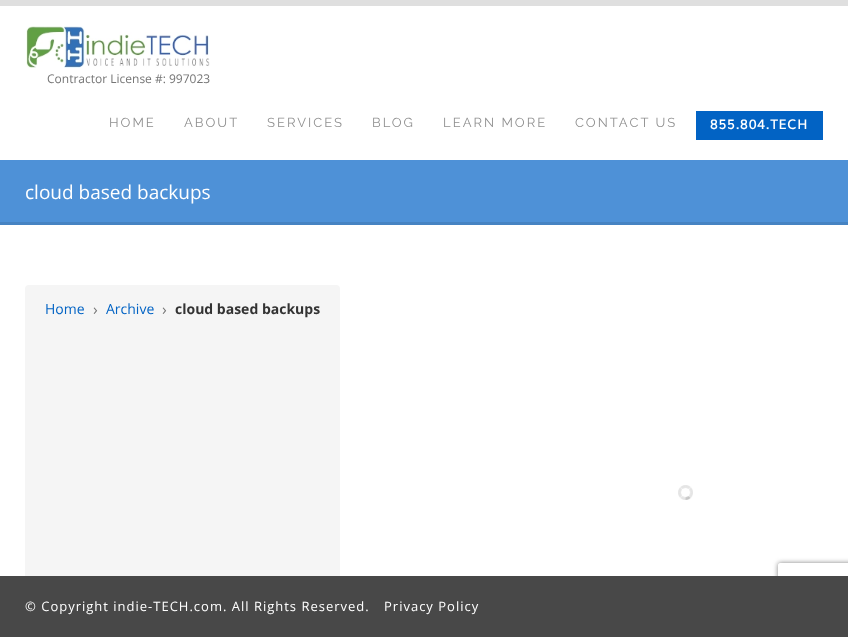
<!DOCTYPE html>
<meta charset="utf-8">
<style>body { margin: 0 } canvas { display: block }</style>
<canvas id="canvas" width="848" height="637"></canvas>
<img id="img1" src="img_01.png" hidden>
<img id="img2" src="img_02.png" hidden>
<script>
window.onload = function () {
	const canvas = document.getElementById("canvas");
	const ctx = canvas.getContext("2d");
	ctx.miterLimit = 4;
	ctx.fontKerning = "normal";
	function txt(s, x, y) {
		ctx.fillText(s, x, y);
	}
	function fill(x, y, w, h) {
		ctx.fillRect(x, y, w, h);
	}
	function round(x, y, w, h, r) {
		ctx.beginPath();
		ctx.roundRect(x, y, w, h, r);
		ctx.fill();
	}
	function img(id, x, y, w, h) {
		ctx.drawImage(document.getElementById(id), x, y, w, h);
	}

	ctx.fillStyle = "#FFFFFF";
	fill(0, 0, 848, 637);
	ctx.fillStyle = "#DFDFDF";
	fill(0, 0, 848, 6);
	img("img1", 26, 26, 184, 42);
	ctx.fillStyle = "#0263C4";
	fill(696, 111, 127, 29);
	ctx.fillStyle = "#4E91D7";
	fill(0, 160, 848, 62);
	ctx.fillStyle = "#4683C2";
	fill(0, 222, 848, 3);
	ctx.fillStyle = "#F5F5F5";
	round(25, 285, 315, 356, 4);
	img("img2", 678, 485, 15, 15);
	ctx.save();
	ctx.beginPath();
	ctx.moveTo(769, 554);
	ctx.lineTo(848, 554);
	ctx.lineTo(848, 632);
	ctx.lineTo(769, 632);
	ctx.closePath();
	ctx.moveTo(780, 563);
	ctx.lineTo(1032, 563);
	ctx.bezierCurveTo(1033, 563, 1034, 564, 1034, 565);
	ctx.lineTo(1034, 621);
	ctx.bezierCurveTo(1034, 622, 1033, 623, 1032, 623);
	ctx.lineTo(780, 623);
	ctx.bezierCurveTo(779, 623, 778, 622, 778, 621);
	ctx.lineTo(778, 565);
	ctx.bezierCurveTo(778, 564, 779, 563, 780, 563);
	ctx.closePath();
	ctx.clip("evenodd");
	ctx.fillStyle = "#808080";
	ctx.filter = "blur(2.5px)";
	ctx.beginPath();
	ctx.roundRect(778, 563, 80, 60, 2);
	ctx.fill();
	ctx.filter = "none";
	ctx.restore();
	ctx.fillStyle = "#484848";
	fill(0, 576, 848, 61);
	ctx.font = "12px Open Sans";
	ctx.fillStyle = "#757575";
	txt("Contractor License #: 997023", 47, 83);
	ctx.letterSpacing = "2px";
	ctx.font = "13px Raleway";
	ctx.fillStyle = "#8F8F8F";
	txt("HOME", 109, 127);
	txt("ABOUT", 184, 127);
	txt("SERVICES", 267, 127);
	txt("BLOG", 372, 127);
	txt("LEARN MORE", 443, 127);
	txt("CONTACT US", 575, 127);
	ctx.letterSpacing = "1px";
	ctx.font = "italic bold 13px Muli";
	ctx.fillStyle = "#FFFFFF";
	txt("855.804.TECH", 710, 129);
	ctx.letterSpacing = "0px";
	ctx.font = "19px Open Sans";
	txt("cloud based backups", 25, 199);
	ctx.font = "14px Open Sans";
	ctx.fillStyle = "#0263C4";
	txt("Home", 45, 314);
	ctx.font = "16px Open Sans";
	ctx.fillStyle = "#757575";
	txt("›", 93, 315);
	ctx.font = "14px Open Sans";
	ctx.fillStyle = "#0263C4";
	txt("Archive", 106, 314);
	ctx.font = "16px Open Sans";
	ctx.fillStyle = "#757575";
	txt("›", 162, 315);
	ctx.font = "bold 14px Open Sans";
	ctx.fillStyle = "#333333";
	txt("cloud based backups", 175, 314);
	ctx.letterSpacing = "1px";
	ctx.font = "13px Open Sans";
	ctx.fillStyle = "#FFFFFF";
	txt("© Copyright indie-TECH.com. All Rights Reserved.", 25, 611);
	txt("Privacy Policy", 384, 611);
};
</script>
